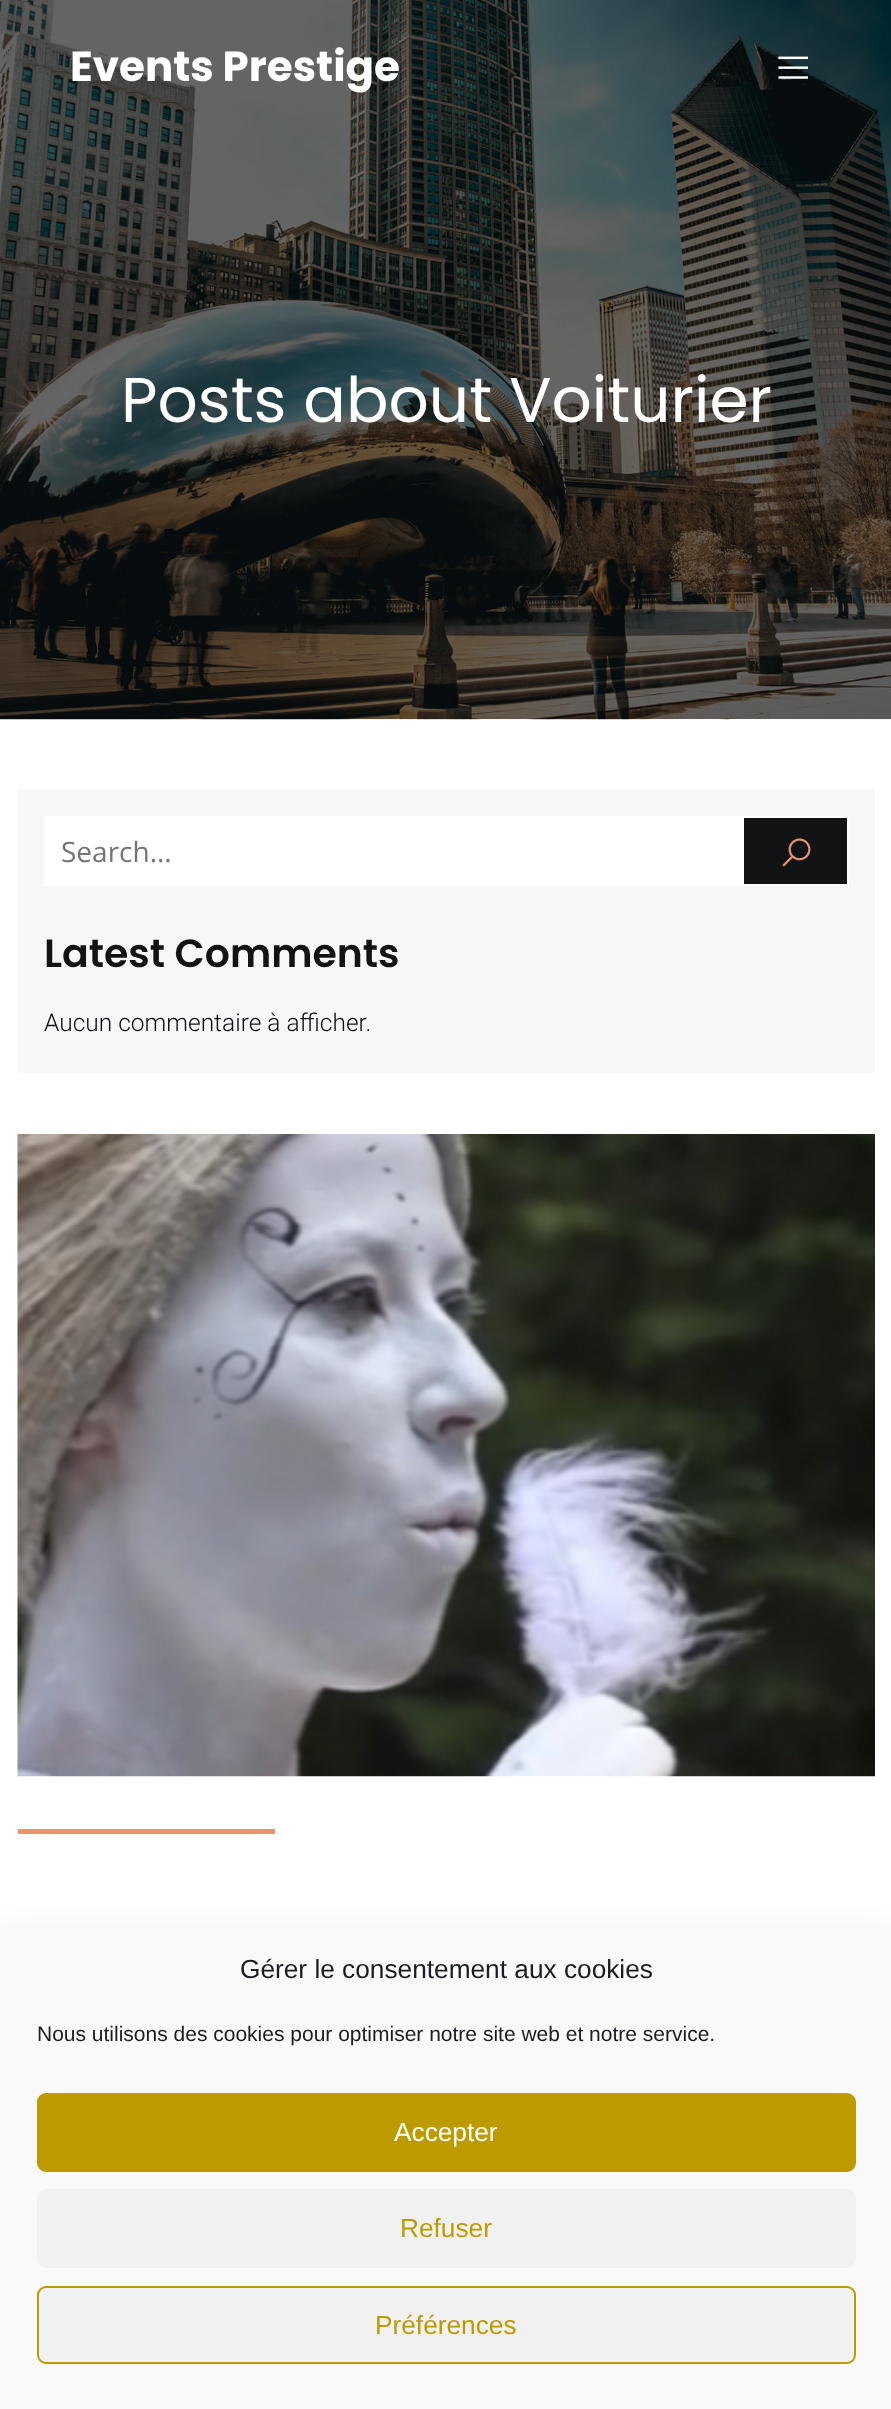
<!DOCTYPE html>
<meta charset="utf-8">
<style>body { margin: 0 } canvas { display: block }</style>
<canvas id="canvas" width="891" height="2409"></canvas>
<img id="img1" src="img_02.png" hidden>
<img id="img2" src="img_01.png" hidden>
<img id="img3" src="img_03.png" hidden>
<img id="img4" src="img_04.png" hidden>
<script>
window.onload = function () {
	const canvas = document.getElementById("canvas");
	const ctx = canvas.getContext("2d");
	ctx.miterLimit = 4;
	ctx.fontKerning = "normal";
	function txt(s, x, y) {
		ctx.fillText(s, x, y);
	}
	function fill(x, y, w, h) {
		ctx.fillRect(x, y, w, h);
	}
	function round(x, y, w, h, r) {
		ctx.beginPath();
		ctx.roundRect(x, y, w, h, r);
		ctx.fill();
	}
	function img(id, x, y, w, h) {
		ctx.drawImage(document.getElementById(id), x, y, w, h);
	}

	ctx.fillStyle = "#FFFFFF";
	fill(0, 0, 891, 2409);
	img("img1", 0, 0, 891, 720);
	img("img2", 778, 56, 30, 23);
	ctx.fillStyle = "#F6F7F9";
	fill(18, 789, 857, 284);
	ctx.fillStyle = "#FFFFFF";
	fill(44, 816, 700, 70);
	ctx.fillStyle = "#121315";
	fill(744, 818, 103, 66);
	ctx.fillStyle = "#FFFFFF";
	fill(744, 816, 105, 2);
	fill(847, 816, 2, 70);
	fill(744, 884, 105, 2);
	img("img3", 782, 838, 29, 29);
	img("img4", 17, 1134, 858, 643);
	ctx.fillStyle = "#EA9374";
	fill(18, 1829, 257, 5);
	ctx.fillStyle = "rgba(0, 0, 0, 0.19)";
	ctx.filter = "blur(17.5px)";
	ctx.beginPath();
	ctx.rect(0, 1943, 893, 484);
	ctx.fill();
	ctx.filter = "none";
	ctx.fillStyle = "#F9F9F9";
	fill(0, 1927, 891, 482);
	ctx.fillStyle = "#BD9B00";
	ctx.beginPath();
	ctx.roundRect(38, 2094, 817, 77, 8);
	ctx.fill();
	ctx.strokeStyle = "#BD9B00";
	ctx.lineWidth = 2;
	ctx.stroke();
	ctx.fillStyle = "#F1F1F1";
	round(37, 2189, 819, 79, 9);
	ctx.beginPath();
	ctx.roundRect(38, 2287, 817, 76, 8);
	ctx.fill();
	ctx.stroke();
	ctx.font = "bold 42px Poppins";
	ctx.fillStyle = "#FFFFFF";
	txt("Events Prestige", 70, 81);
	ctx.font = "63px Poppins";
	txt("Posts about Voiturier", 121, 422);
	ctx.font = "28px Open Sans";
	ctx.fillStyle = "#757575";
	txt("Search...", 61, 862);
	ctx.font = "600 39.4px Poppins";
	ctx.fillStyle = "#121315";
	txt("Latest Comments", 44, 967);
	ctx.font = "300 24.5px Roboto";
	ctx.fillStyle = "#0A0E14";
	txt("Aucun commentaire à afficher.", 44, 1031);
	ctx.font = "26.25px Liberation Sans";
	ctx.fillStyle = "#191E23";
	txt("Gérer le consentement aux cookies", 240, 1978);
	ctx.font = "21px Liberation Sans";
	txt("Nous utilisons des cookies pour optimiser notre site web et notre service.", 37, 2041);
	ctx.font = "26.25px Liberation Sans";
	ctx.fillStyle = "#FFFFFF";
	txt("Accepter", 394, 2141);
	ctx.fillStyle = "#BD9B00";
	txt("Refuser", 400, 2237);
	txt("Préférences", 375, 2334);
};
</script>
